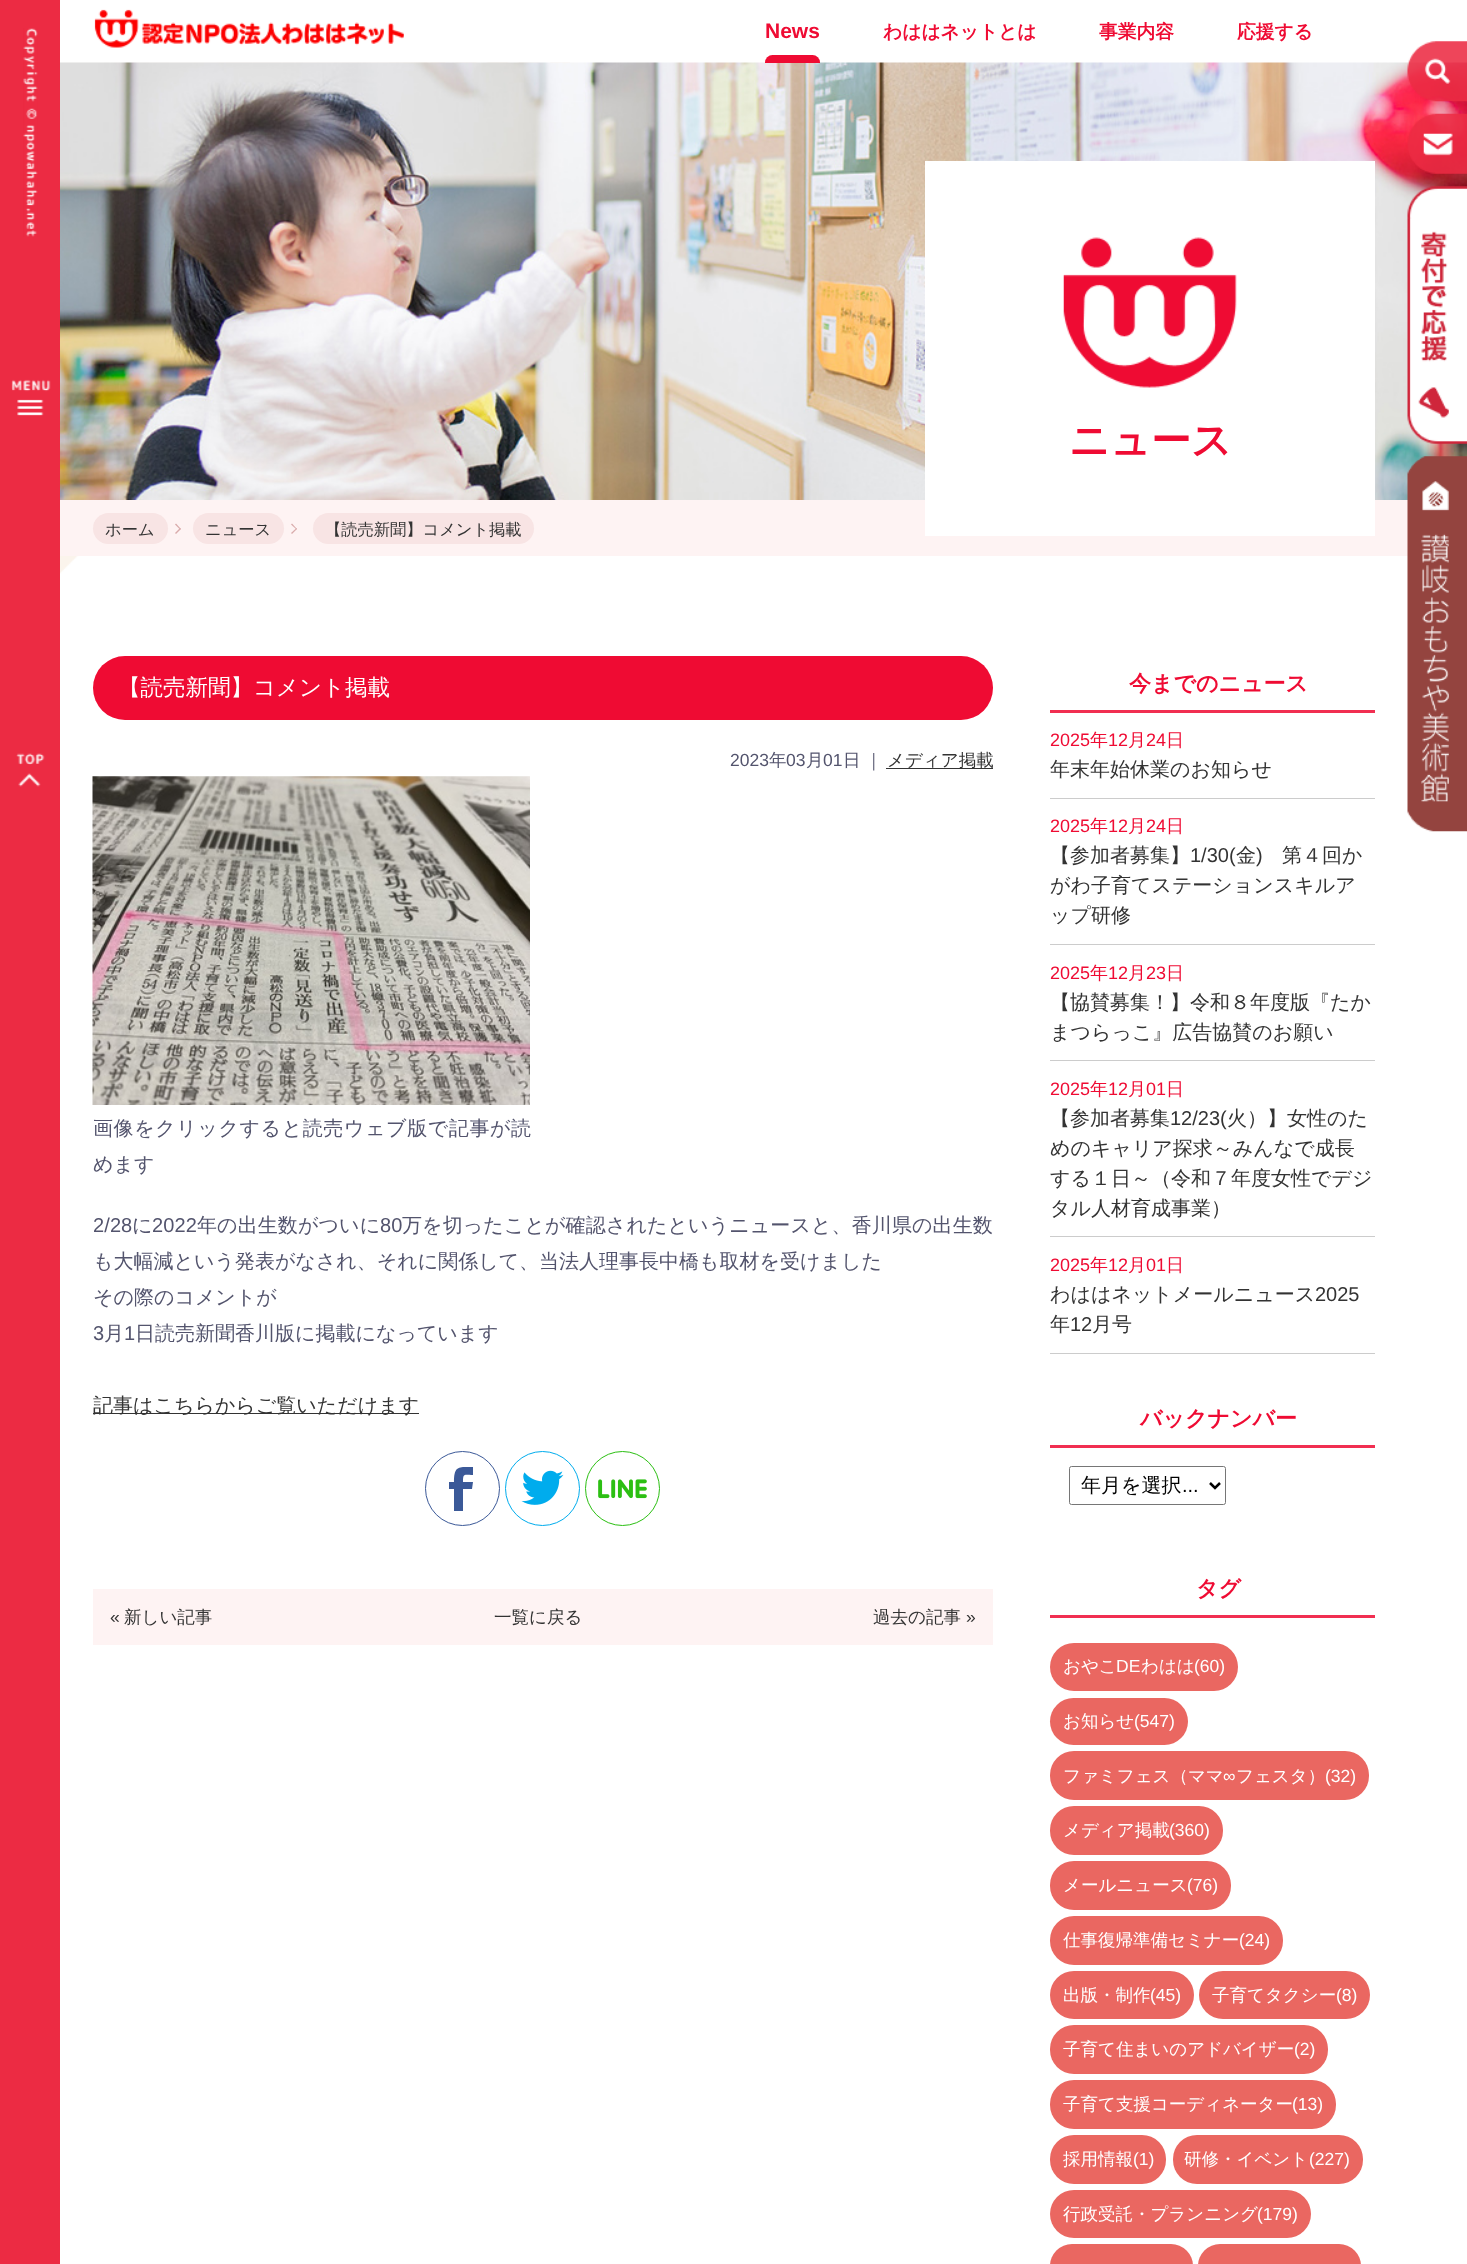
<!DOCTYPE html>
<meta charset="utf-8">
<style>body { margin: 0 } canvas { display: block }</style>
<canvas id="canvas" width="1467" height="2264"></canvas>
<img id="img1" src="img_01.png" hidden>
<img id="img2" src="img_02.png" hidden>
<img id="img3" src="img_03.png" hidden>
<img id="img4" src="img_04.png" hidden>
<img id="img5" src="img_08.png" hidden>
<img id="img6" src="img_09.png" hidden>
<img id="img7" src="img_05.png" hidden>
<img id="img8" src="img_06.png" hidden>
<img id="img9" src="img_07.png" hidden>
<img id="img10" src="img_10.png" hidden>
<img id="img11" src="img_11.png" hidden>
<img id="img12" src="img_12.png" hidden>
<img id="img13" src="img_13.png" hidden>
<img id="img14" src="img_14.png" hidden>
<script>
window.onload = function () {
	const canvas = document.getElementById("canvas");
	const ctx = canvas.getContext("2d");
	ctx.miterLimit = 4;
	ctx.fontKerning = "normal";
	function txt(s, x, y) {
		ctx.fillText(s, x, y);
	}
	function fill(x, y, w, h) {
		ctx.fillRect(x, y, w, h);
	}
	function round(x, y, w, h, r) {
		ctx.beginPath();
		ctx.roundRect(x, y, w, h, r);
		ctx.fill();
	}
	function img(id, x, y, w, h) {
		ctx.drawImage(document.getElementById(id), x, y, w, h);
	}

	ctx.fillStyle = "#FFFFFF";
	fill(0, 0, 1467, 2264);
	ctx.fillStyle = "#EC2B43";
	fill(0, 0, 60, 2264);
	img("img1", 23, 28, 15, 209);
	img("img2", 8, 379, 44, 39);
	img("img3", 16, 753, 29, 34);
	img("img4", 94, 9, 310, 39);
	img("img5", 60, 62, 510, 513);
	img("img6", 60, 62, 1407, 438);
	ctx.save();
	ctx.beginPath();
	ctx.rect(734, 0, 641, 63);
	ctx.clip();
	ctx.fillStyle = "#EF0B33";
	round(765, 55, 55, 15, 7.5);
	ctx.restore();
	img("img7", 1407, 41, 60, 61);
	img("img8", 1407, 113, 60, 61);
	img("img9", 1407, 186, 60, 258);
	ctx.fillStyle = "#FEF3F3";
	fill(60, 500, 1348, 56);
	ctx.fillStyle = "#FFFFFF";
	fill(925, 161, 450, 375);
	img("img10", 1063, 237, 174, 151);
	ctx.fillStyle = "#F8E4E4";
	round(93, 513, 75, 31, 15.5);
	ctx.fillStyle = "#D9ABAB";
	ctx.beginPath();
	ctx.moveTo(175, 524.5);
	ctx.lineTo(176, 523.5);
	ctx.lineTo(181, 529);
	ctx.lineTo(180, 529.5);
	ctx.closePath();
	ctx.fill();
	ctx.beginPath();
	ctx.moveTo(175, 533);
	ctx.lineTo(180, 528);
	ctx.lineTo(181, 529);
	ctx.lineTo(176, 534);
	ctx.closePath();
	ctx.fill();
	ctx.fillStyle = "#F8E4E4";
	round(193, 513, 91, 31, 15.5);
	ctx.fillStyle = "#D9ABAB";
	ctx.beginPath();
	ctx.moveTo(291, 524.5);
	ctx.lineTo(292, 523.5);
	ctx.lineTo(297, 529);
	ctx.lineTo(296.5, 529.5);
	ctx.closePath();
	ctx.fill();
	ctx.beginPath();
	ctx.moveTo(291, 533);
	ctx.lineTo(296.5, 528);
	ctx.lineTo(297, 529);
	ctx.lineTo(292, 534);
	ctx.closePath();
	ctx.fill();
	ctx.fillStyle = "#F8E4E4";
	round(313, 513, 221, 31, 15.5);
	ctx.fillStyle = "#EF0B33";
	round(93, 656, 900, 64, 32);
	ctx.fillStyle = "#333333";
	fill(886, 768, 107, 1);
	img("img11", 92, 776, 438, 329);
	fill(93, 1413, 326, 1);
	ctx.fillStyle = "#3B5998";
	ctx.beginPath();
	ctx.moveTo(472, 1489);
	ctx.lineTo(463, 1489);
	ctx.lineTo(463, 1511);
	ctx.lineTo(454, 1511);
	ctx.lineTo(454, 1489);
	ctx.lineTo(449, 1489);
	ctx.lineTo(449, 1482);
	ctx.lineTo(454, 1482);
	ctx.bezierCurveTo(454, 1465, 459, 1467, 473, 1467);
	ctx.lineTo(473, 1475);
	ctx.bezierCurveTo(464, 1475, 463, 1473, 463, 1482);
	ctx.lineTo(473, 1482);
	ctx.closePath();
	ctx.fill();
	ctx.beginPath();
	ctx.arc(462.5, 1488.5, 37, 0, Math.PI * 2);
	ctx.strokeStyle = "#3B5998";
	ctx.stroke();
	img("img12", 521, 1470, 43, 35);
	ctx.beginPath();
	ctx.arc(542.5, 1488.5, 37, 0, Math.PI * 2);
	ctx.strokeStyle = "#00ACED";
	ctx.stroke();
	img("img13", 598, 1479, 49, 20);
	ctx.beginPath();
	ctx.arc(622.5, 1488.5, 37, 0, Math.PI * 2);
	ctx.strokeStyle = "#2CBF13";
	ctx.stroke();
	ctx.fillStyle = "#FEF3F3";
	fill(93, 1589, 900, 56);
	ctx.fillStyle = "#F12F51";
	fill(1050, 710, 325, 3);
	ctx.fillStyle = "#CCCCCC";
	fill(1050, 798, 325, 1);
	fill(1050, 944, 325, 1);
	fill(1050, 1060, 325, 1);
	fill(1050, 1236, 325, 1);
	fill(1050, 1353, 325, 1);
	ctx.fillStyle = "#F12F51";
	fill(1050, 1445, 325, 3);
	ctx.beginPath();
	ctx.roundRect(1069.5, 1466.5, 156, 38, 2);
	ctx.strokeStyle = "#767676";
	ctx.stroke();
	ctx.beginPath();
	ctx.moveTo(1210, 1483);
	ctx.lineTo(1215, 1488);
	ctx.lineTo(1220, 1483);
	ctx.strokeStyle = "#000000";
	ctx.lineWidth = 2.5;
	ctx.stroke();
	fill(1050, 1615, 325, 3);
	ctx.fillStyle = "#EA6761";
	round(1050, 1643, 188, 48, 24);
	round(1050, 1698, 138, 47, 23.5);
	round(1050, 1751, 319, 49, 24);
	round(1050, 1806, 173, 49, 24);
	round(1050, 1861, 181, 49, 24);
	round(1050, 1916, 233, 49, 24);
	round(1050, 1971, 144, 48, 24);
	round(1199, 1971, 171, 48, 24);
	round(1050, 2025, 278, 49, 24);
	round(1050, 2080, 286, 49, 24);
	round(1050, 2135, 116, 49, 24);
	round(1173, 2135, 190, 49, 24);
	round(1050, 2190, 261, 48, 24);
	round(1050, 2244, 143, 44, 24);
	round(1198, 2244, 163, 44, 24);
	img("img14", 1407, 456, 60, 376);
	ctx.font = "bold 21px Liberation Sans";
	ctx.fillStyle = "#EF0B33";
	txt("News", 765, 38);
	ctx.font = "bold 18.75px WenQuanYi Zen Hei";
	txt("わははネットとは", 883, 38);
	txt("事業内容", 1099, 38);
	txt("応援する", 1237, 38);
	ctx.font = "bold 40px WenQuanYi Zen Hei";
	txt("ニュース", 1069, 454);
	ctx.font = "500 16.25px WenQuanYi Zen Hei";
	ctx.fillStyle = "#333333";
	txt("ホーム", 105, 535);
	txt("ニュース", 205, 535);
	txt("【読売新聞】コメント掲載", 325, 535);
	ctx.font = "500 22.5px WenQuanYi Zen Hei";
	ctx.fillStyle = "#FFFFFF";
	txt("【読売新聞】コメント掲載", 118, 695);
	ctx.font = "17.5px Liberation Sans";
	ctx.fillStyle = "#53546D";
	txt("2023", 730, 766);
	ctx.font = "500 17.5px WenQuanYi Zen Hei";
	txt("年", 769, 766);
	ctx.font = "17.5px Liberation Sans";
	txt("03", 786, 766);
	ctx.font = "500 17.5px WenQuanYi Zen Hei";
	txt("月", 806, 766);
	ctx.font = "17.5px Liberation Sans";
	txt("01", 823, 766);
	ctx.font = "500 17.5px WenQuanYi Zen Hei";
	txt("日", 843, 766);
	txt("｜", 865, 766);
	ctx.fillStyle = "#333333";
	txt("メディア掲載", 887, 766);
	ctx.letterSpacing = "0.6px";
	ctx.font = "500 20px WenQuanYi Zen Hei";
	ctx.fillStyle = "#53546D";
	txt("画像をクリックすると読売ウェブ版で記事が読", 93, 1135);
	ctx.letterSpacing = "0px";
	txt("めます", 93, 1171);
	ctx.letterSpacing = "0.1px";
	ctx.font = "20px Liberation Sans";
	txt("2/28", 93, 1232);
	ctx.font = "500 20px WenQuanYi Zen Hei";
	txt("に", 132, 1232);
	ctx.font = "20px Liberation Sans";
	txt("2022", 152, 1232);
	ctx.font = "500 20px WenQuanYi Zen Hei";
	txt("年の出生数がついに", 197, 1232);
	ctx.font = "20px Liberation Sans";
	txt("80", 380, 1232);
	ctx.font = "500 20px WenQuanYi Zen Hei";
	txt("万を切ったことが確認されたというニュースと、香川県の出生数", 402, 1232);
	ctx.letterSpacing = "0px";
	txt("も大幅減という発表がなされ、それに関係して、当法人理事長中橋も取材を受けました", 93, 1268);
	txt("その際のコメントが", 93, 1304);
	ctx.font = "20px Liberation Sans";
	txt("3", 93, 1340);
	ctx.font = "500 20px WenQuanYi Zen Hei";
	txt("月", 104, 1340);
	ctx.font = "20px Liberation Sans";
	txt("1", 124, 1340);
	ctx.font = "500 20px WenQuanYi Zen Hei";
	txt("日読売新聞香川版に掲載になっています", 135, 1340);
	ctx.fillStyle = "#333333";
	txt("記事はこちらからご覧いただけます", 93, 1412);
	ctx.font = "17.5px Liberation Sans";
	txt("«", 110, 1623);
	ctx.font = "500 17.5px WenQuanYi Zen Hei";
	txt("新しい記事", 124, 1623);
	txt("一覧に戻る", 494, 1623);
	txt("過去の記事", 873, 1623);
	ctx.font = "17.5px Liberation Sans";
	txt("»", 966, 1623);
	ctx.font = "bold 22px WenQuanYi Zen Hei";
	ctx.fillStyle = "#EF0B33";
	txt("今までのニュース", 1129, 691);
	ctx.font = "18px Liberation Sans";
	txt("2025", 1050, 746);
	ctx.font = "500 18px WenQuanYi Zen Hei";
	txt("年", 1090, 746);
	ctx.font = "18px Liberation Sans";
	txt("12", 1108, 746);
	ctx.font = "500 18px WenQuanYi Zen Hei";
	txt("月", 1128, 746);
	ctx.font = "18px Liberation Sans";
	txt("24", 1146, 746);
	ctx.font = "500 18px WenQuanYi Zen Hei";
	txt("日", 1166, 746);
	ctx.font = "500 20px WenQuanYi Zen Hei";
	ctx.fillStyle = "#333333";
	txt("年末年始休業のお知らせ", 1050, 776);
	ctx.font = "18px Liberation Sans";
	ctx.fillStyle = "#EF0B33";
	txt("2025", 1050, 832);
	ctx.font = "500 18px WenQuanYi Zen Hei";
	txt("年", 1090, 832);
	ctx.font = "18px Liberation Sans";
	txt("12", 1108, 832);
	ctx.font = "500 18px WenQuanYi Zen Hei";
	txt("月", 1128, 832);
	ctx.font = "18px Liberation Sans";
	txt("24", 1146, 832);
	ctx.font = "500 18px WenQuanYi Zen Hei";
	txt("日", 1166, 832);
	ctx.font = "500 20px WenQuanYi Zen Hei";
	ctx.fillStyle = "#333333";
	txt("【参加者募集】", 1050, 862);
	ctx.font = "20px Liberation Sans";
	txt("1/30(", 1190, 862);
	ctx.font = "500 20px WenQuanYi Zen Hei";
	txt("金", 1236, 862);
	ctx.font = "20px Liberation Sans";
	txt(")", 1256, 862);
	ctx.font = "500 20px WenQuanYi Zen Hei";
	txt("第４回か", 1282, 862);
	txt("がわ子育てステーションスキルア", 1050, 892);
	txt("ップ研修", 1050, 922);
	ctx.font = "18px Liberation Sans";
	ctx.fillStyle = "#EF0B33";
	txt("2025", 1050, 979);
	ctx.font = "500 18px WenQuanYi Zen Hei";
	txt("年", 1090, 979);
	ctx.font = "18px Liberation Sans";
	txt("12", 1108, 979);
	ctx.font = "500 18px WenQuanYi Zen Hei";
	txt("月", 1128, 979);
	ctx.font = "18px Liberation Sans";
	txt("23", 1146, 979);
	ctx.font = "500 18px WenQuanYi Zen Hei";
	txt("日", 1166, 979);
	ctx.font = "500 20px WenQuanYi Zen Hei";
	ctx.fillStyle = "#333333";
	txt("【協賛募集！】令和８年度版『たか", 1050, 1009);
	txt("まつらっこ』広告協賛のお願い", 1050, 1039);
	ctx.font = "18px Liberation Sans";
	ctx.fillStyle = "#EF0B33";
	txt("2025", 1050, 1095);
	ctx.font = "500 18px WenQuanYi Zen Hei";
	txt("年", 1090, 1095);
	ctx.font = "18px Liberation Sans";
	txt("12", 1108, 1095);
	ctx.font = "500 18px WenQuanYi Zen Hei";
	txt("月", 1128, 1095);
	ctx.font = "18px Liberation Sans";
	txt("01", 1146, 1095);
	ctx.font = "500 18px WenQuanYi Zen Hei";
	txt("日", 1166, 1095);
	ctx.font = "500 20px WenQuanYi Zen Hei";
	ctx.fillStyle = "#333333";
	txt("【参加者募集", 1050, 1125);
	ctx.font = "20px Liberation Sans";
	txt("12/23(", 1170, 1125);
	ctx.font = "500 20px WenQuanYi Zen Hei";
	txt("火）】女性のた", 1227, 1125);
	txt("めのキャリア探求～みんなで成長", 1050, 1155);
	txt("する１日～（令和７年度女性でデジ", 1050, 1185);
	txt("タル人材育成事業）", 1050, 1215);
	ctx.font = "18px Liberation Sans";
	ctx.fillStyle = "#EF0B33";
	txt("2025", 1050, 1271);
	ctx.font = "500 18px WenQuanYi Zen Hei";
	txt("年", 1090, 1271);
	ctx.font = "18px Liberation Sans";
	txt("12", 1108, 1271);
	ctx.font = "500 18px WenQuanYi Zen Hei";
	txt("月", 1128, 1271);
	ctx.font = "18px Liberation Sans";
	txt("01", 1146, 1271);
	ctx.font = "500 18px WenQuanYi Zen Hei";
	txt("日", 1166, 1271);
	ctx.font = "500 20px WenQuanYi Zen Hei";
	ctx.fillStyle = "#333333";
	txt("わははネットメールニュース", 1050, 1301);
	ctx.font = "20px Liberation Sans";
	txt("2025", 1315, 1301);
	ctx.font = "500 20px WenQuanYi Zen Hei";
	txt("年", 1050, 1331);
	ctx.font = "20px Liberation Sans";
	txt("12", 1070, 1331);
	ctx.font = "500 20px WenQuanYi Zen Hei";
	txt("月号", 1092, 1331);
	ctx.font = "bold 22px WenQuanYi Zen Hei";
	ctx.fillStyle = "#EF0B33";
	txt("バックナンバー", 1140, 1426);
	ctx.font = "500 20px WenQuanYi Zen Hei";
	ctx.fillStyle = "#000000";
	txt("年月を選択", 1081, 1492);
	ctx.font = "20px Liberation Sans";
	txt("...", 1182, 1492);
	ctx.font = "bold 22px WenQuanYi Zen Hei";
	ctx.fillStyle = "#EF0B33";
	txt("タグ", 1196, 1596);
	ctx.font = "500 17.5px WenQuanYi Zen Hei";
	ctx.fillStyle = "#FFFFFF";
	txt("おやこ", 1063, 1672);
	ctx.font = "17.5px Liberation Sans";
	txt("DE", 1116, 1672);
	ctx.font = "500 17.5px WenQuanYi Zen Hei";
	txt("わはは", 1141, 1672);
	ctx.font = "17.5px Liberation Sans";
	txt("(60)", 1194, 1672);
	ctx.font = "500 17.5px WenQuanYi Zen Hei";
	txt("お知らせ", 1063, 1727);
	ctx.font = "17.5px Liberation Sans";
	txt("(547)", 1134, 1727);
	ctx.font = "500 17.5px WenQuanYi Zen Hei";
	txt("ファミフェス（ママ", 1063, 1782);
	ctx.font = "17.5px Liberation Sans";
	txt("∞", 1223, 1782);
	ctx.font = "500 17.5px WenQuanYi Zen Hei";
	txt("フェスタ）", 1236, 1782);
	ctx.font = "17.5px Liberation Sans";
	txt("(32)", 1325, 1782);
	ctx.font = "500 17.5px WenQuanYi Zen Hei";
	txt("メディア掲載", 1063, 1836);
	ctx.font = "17.5px Liberation Sans";
	txt("(360)", 1169, 1836);
	ctx.font = "500 17.5px WenQuanYi Zen Hei";
	txt("メールニュース", 1063, 1891);
	ctx.font = "17.5px Liberation Sans";
	txt("(76)", 1187, 1891);
	ctx.font = "500 17.5px WenQuanYi Zen Hei";
	txt("仕事復帰準備セミナー", 1063, 1946);
	ctx.font = "17.5px Liberation Sans";
	txt("(24)", 1239, 1946);
	ctx.font = "500 17.5px WenQuanYi Zen Hei";
	txt("出版・制作", 1063, 2001);
	ctx.font = "17.5px Liberation Sans";
	txt("(45)", 1150, 2001);
	ctx.font = "500 17.5px WenQuanYi Zen Hei";
	txt("子育てタクシー", 1212, 2001);
	ctx.font = "17.5px Liberation Sans";
	txt("(8)", 1336, 2001);
	ctx.font = "500 17.5px WenQuanYi Zen Hei";
	txt("子育て住まいのアドバイザー", 1063, 2055);
	ctx.font = "17.5px Liberation Sans";
	txt("(2)", 1294, 2055);
	ctx.font = "500 17.5px WenQuanYi Zen Hei";
	txt("子育て支援コーディネーター", 1063, 2110);
	ctx.font = "17.5px Liberation Sans";
	txt("(13)", 1292, 2110);
	ctx.font = "500 17.5px WenQuanYi Zen Hei";
	txt("採用情報", 1063, 2165);
	ctx.font = "17.5px Liberation Sans";
	txt("(1)", 1133, 2165);
	ctx.font = "500 17.5px WenQuanYi Zen Hei";
	txt("研修・イベント", 1184, 2165);
	ctx.font = "17.5px Liberation Sans";
	txt("(227)", 1309, 2165);
	ctx.font = "500 17.5px WenQuanYi Zen Hei";
	txt("行政受託・プランニング", 1063, 2220);
	ctx.font = "17.5px Liberation Sans";
	txt("(179)", 1257, 2220);
};
</script>
